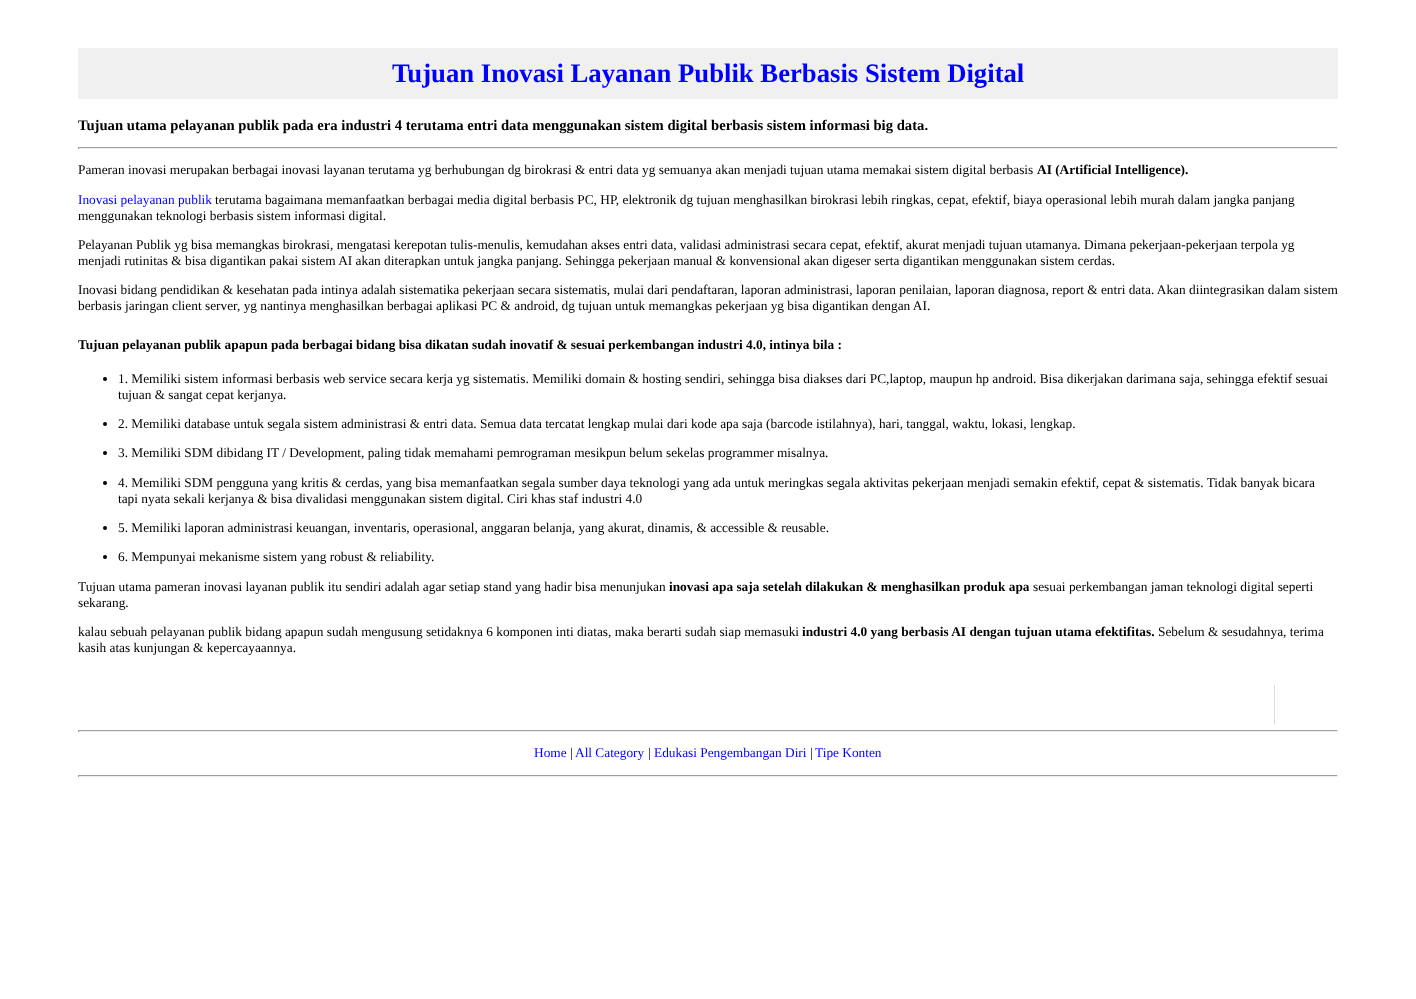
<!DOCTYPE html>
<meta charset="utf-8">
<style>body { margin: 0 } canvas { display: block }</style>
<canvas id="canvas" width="1416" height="999"></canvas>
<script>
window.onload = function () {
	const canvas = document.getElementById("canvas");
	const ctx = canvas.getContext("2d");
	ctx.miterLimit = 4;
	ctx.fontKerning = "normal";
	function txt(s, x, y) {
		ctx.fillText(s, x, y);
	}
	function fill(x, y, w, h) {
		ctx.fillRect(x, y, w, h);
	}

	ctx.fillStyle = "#FFFFFF";
	fill(0, 0, 1416, 999);
	ctx.fillStyle = "#F0F0F0";
	fill(78, 48, 1260, 51);
	ctx.fillStyle = "#9F9F9F";
	fill(78, 147, 1260, 1);
	ctx.fillStyle = "#EEEEEE";
	fill(1337, 147, 1, 2);
	fill(78, 148, 1260, 1);
	ctx.fillStyle = "#9F9F9F";
	fill(78, 147, 1, 2);
	ctx.fillStyle = "#000000";
	ctx.beginPath();
	ctx.arc(105, 379, 2, 0, Math.PI * 2);
	ctx.fill();
	ctx.beginPath();
	ctx.arc(105, 424, 2, 0, Math.PI * 2);
	ctx.fill();
	ctx.beginPath();
	ctx.arc(105, 453, 2, 0, Math.PI * 2);
	ctx.fill();
	ctx.beginPath();
	ctx.arc(105, 483, 2, 0, Math.PI * 2);
	ctx.fill();
	ctx.beginPath();
	ctx.arc(105, 528, 2, 0, Math.PI * 2);
	ctx.fill();
	ctx.beginPath();
	ctx.arc(105, 557, 2, 0, Math.PI * 2);
	ctx.fill();
	ctx.fillStyle = "#DDDDDD";
	fill(1274, 685, 1, 39);
	ctx.fillStyle = "#9F9F9F";
	fill(78, 730, 1260, 1);
	ctx.fillStyle = "#EEEEEE";
	fill(1337, 730, 1, 2);
	fill(78, 731, 1260, 1);
	ctx.fillStyle = "#9F9F9F";
	fill(78, 730, 1, 2);
	fill(78, 775, 1260, 1);
	ctx.fillStyle = "#EEEEEE";
	fill(1337, 775, 1, 2);
	fill(78, 776, 1260, 1);
	ctx.fillStyle = "#9F9F9F";
	fill(78, 775, 1, 2);
	ctx.font = "bold 26.7px Liberation Serif";
	ctx.fillStyle = "#0000FF";
	txt("Tujuan Inovasi Layanan Publik Berbasis Sistem Digital", 392, 82);
	ctx.font = "bold 14.67px Liberation Serif";
	ctx.fillStyle = "#000000";
	txt("Tujuan utama pelayanan publik pada era industri 4 terutama entri data menggunakan sistem digital berbasis sistem informasi big data.", 78, 130);
	ctx.font = "13.33px Liberation Serif";
	txt("Pameran inovasi merupakan berbagai inovasi layanan terutama yg berhubungan dg birokrasi & entri data yg semuanya akan menjadi tujuan utama memakai sistem digital berbasis", 78, 174);
	ctx.font = "bold 13.33px Liberation Serif";
	txt("AI (Artificial Intelligence).", 1037, 174);
	ctx.font = "13.33px Liberation Serif";
	ctx.fillStyle = "#0000FF";
	txt("Inovasi pelayanan publik", 78, 204);
	ctx.fillStyle = "#000000";
	txt("terutama bagaimana memanfaatkan berbagai media digital berbasis PC, HP, elektronik dg tujuan menghasilkan birokrasi lebih ringkas, cepat, efektif, biaya operasional lebih murah dalam jangka panjang", 215, 204);
	txt("menggunakan teknologi berbasis sistem informasi digital.", 78, 220);
	txt("Pelayanan Publik yg bisa memangkas birokrasi, mengatasi kerepotan tulis-menulis, kemudahan akses entri data, validasi administrasi secara cepat, efektif, akurat menjadi tujuan utamanya. Dimana pekerjaan-pekerjaan terpola yg", 78, 249);
	txt("menjadi rutinitas & bisa digantikan pakai sistem AI akan diterapkan untuk jangka panjang. Sehingga pekerjaan manual & konvensional akan digeser serta digantikan menggunakan sistem cerdas.", 78, 265);
	txt("Inovasi bidang pendidikan & kesehatan pada intinya adalah sistematika pekerjaan secara sistematis, mulai dari pendaftaran, laporan administrasi, laporan penilaian, laporan diagnosa, report & entri data. Akan diintegrasikan dalam sistem", 78, 294);
	txt("berbasis jaringan client server, yg nantinya menghasilkan berbagai aplikasi PC & android, dg tujuan untuk memangkas pekerjaan yg bisa digantikan dengan AI.", 78, 310);
	ctx.font = "bold 13.33px Liberation Serif";
	txt("Tujuan pelayanan publik apapun pada berbagai bidang bisa dikatan sudah inovatif & sesuai perkembangan industri 4.0, intinya bila :", 78, 349);
	ctx.font = "13.33px Liberation Serif";
	txt("1. Memiliki sistem informasi berbasis web service secara kerja yg sistematis. Memiliki domain & hosting sendiri, sehingga bisa diakses dari PC,laptop, maupun hp android. Bisa dikerjakan darimana saja, sehingga efektif sesuai", 118, 383);
	txt("tujuan & sangat cepat kerjanya.", 118, 399);
	txt("2. Memiliki database untuk segala sistem administrasi & entri data. Semua data tercatat lengkap mulai dari kode apa saja (barcode istilahnya), hari, tanggal, waktu, lokasi, lengkap.", 118, 428);
	txt("3. Memiliki SDM dibidang IT / Development, paling tidak memahami pemrograman mesikpun belum sekelas programmer misalnya.", 118, 457);
	txt("4. Memiliki SDM pengguna yang kritis & cerdas, yang bisa memanfaatkan segala sumber daya teknologi yang ada untuk meringkas segala aktivitas pekerjaan menjadi semakin efektif, cepat & sistematis. Tidak banyak bicara", 118, 487);
	txt("tapi nyata sekali kerjanya & bisa divalidasi menggunakan sistem digital. Ciri khas staf industri 4.0", 118, 503);
	txt("5. Memiliki laporan administrasi keuangan, inventaris, operasional, anggaran belanja, yang akurat, dinamis, & accessible & reusable.", 118, 532);
	txt("6. Mempunyai mekanisme sistem yang robust & reliability.", 118, 561);
	txt("Tujuan utama pameran inovasi layanan publik itu sendiri adalah agar setiap stand yang hadir bisa menunjukan", 78, 591);
	ctx.font = "bold 13.33px Liberation Serif";
	txt("inovasi apa saja setelah dilakukan & menghasilkan produk apa", 669, 591);
	ctx.font = "13.33px Liberation Serif";
	txt("sesuai perkembangan jaman teknologi digital seperti", 1033, 591);
	txt("sekarang.", 78, 607);
	txt("kalau sebuah pelayanan publik bidang apapun sudah mengusung setidaknya 6 komponen inti diatas, maka berarti sudah siap memasuki", 78, 636);
	ctx.font = "bold 13.33px Liberation Serif";
	txt("industri 4.0 yang berbasis AI dengan tujuan utama efektifitas.", 802, 636);
	ctx.font = "13.33px Liberation Serif";
	txt("Sebelum & sesudahnya, terima", 1158, 636);
	txt("kasih atas kunjungan & kepercayaannya.", 78, 652);
	ctx.fillStyle = "#0000FF";
	txt("Home", 534, 757);
	ctx.fillStyle = "#000000";
	txt("|", 570, 757);
	ctx.fillStyle = "#0000FF";
	txt("All Category", 575, 757);
	ctx.fillStyle = "#000000";
	txt("|", 648, 757);
	ctx.fillStyle = "#0000FF";
	txt("Edukasi Pengembangan Diri", 654, 757);
	ctx.fillStyle = "#000000";
	txt("|", 810, 757);
	ctx.fillStyle = "#0000FF";
	txt("Tipe Konten", 815, 757);
};
</script>
